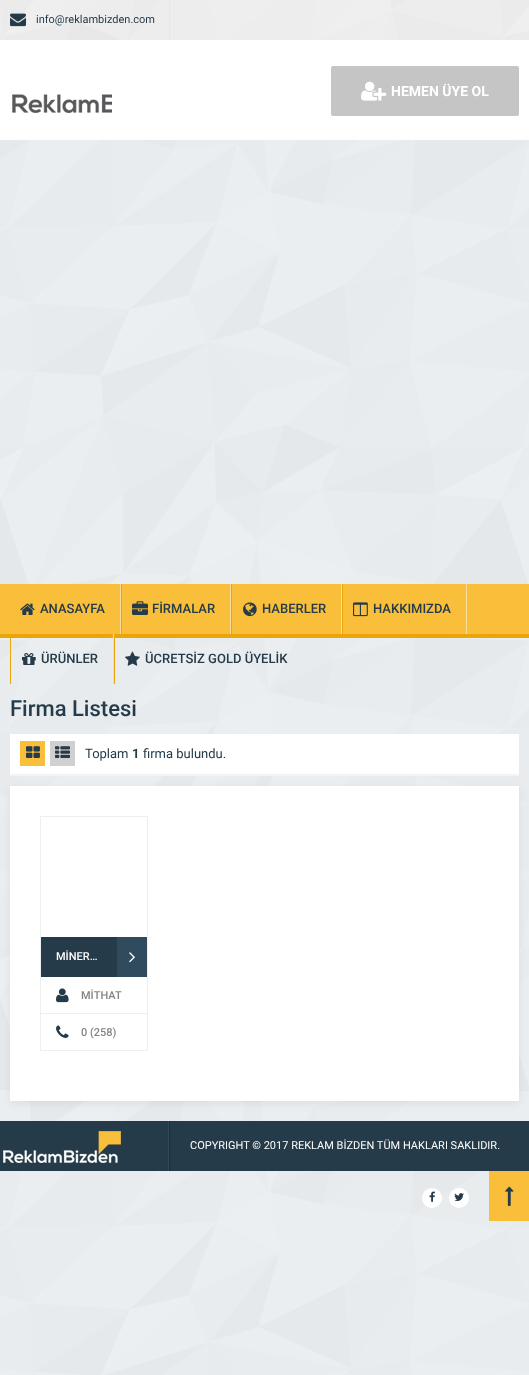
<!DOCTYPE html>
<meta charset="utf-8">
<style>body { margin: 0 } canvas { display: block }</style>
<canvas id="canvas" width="529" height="1375"></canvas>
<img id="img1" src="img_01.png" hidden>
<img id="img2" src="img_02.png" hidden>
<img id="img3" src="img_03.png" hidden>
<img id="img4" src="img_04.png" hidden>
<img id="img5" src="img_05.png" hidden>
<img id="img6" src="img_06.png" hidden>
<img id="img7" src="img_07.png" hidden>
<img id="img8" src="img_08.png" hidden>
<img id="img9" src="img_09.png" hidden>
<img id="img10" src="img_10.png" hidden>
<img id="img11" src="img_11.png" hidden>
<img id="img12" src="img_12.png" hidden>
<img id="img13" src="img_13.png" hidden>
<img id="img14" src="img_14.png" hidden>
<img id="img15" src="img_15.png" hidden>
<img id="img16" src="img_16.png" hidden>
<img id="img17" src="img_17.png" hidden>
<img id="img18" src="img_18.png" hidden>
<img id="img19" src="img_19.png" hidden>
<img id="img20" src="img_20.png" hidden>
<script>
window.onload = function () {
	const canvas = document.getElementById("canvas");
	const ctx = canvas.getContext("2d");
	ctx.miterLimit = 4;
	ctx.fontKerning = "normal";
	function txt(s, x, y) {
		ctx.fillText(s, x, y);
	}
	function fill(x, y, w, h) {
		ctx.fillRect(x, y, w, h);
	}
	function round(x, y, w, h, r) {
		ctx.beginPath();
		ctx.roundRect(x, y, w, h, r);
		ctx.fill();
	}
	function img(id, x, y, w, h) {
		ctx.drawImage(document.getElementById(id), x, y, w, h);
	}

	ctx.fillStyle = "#FFFFFF";
	fill(0, 0, 529, 1375);
	img("img1", 0, 140, 529, 1235);
	img("img2", 0, 0, 529, 40);
	ctx.fillStyle = "#E6E6E6";
	fill(169, 0, 1, 40);
	img("img3", 10, 13, 16, 14);
	ctx.fillStyle = "#C5C5C5";
	round(331, 66, 188, 50, 2);
	img("img4", 361, 81, 26, 20);
	img("img5", 12, 94, 100, 19);
	ctx.fillStyle = "#F9BF3B";
	fill(0, 584, 529, 50);
	ctx.fillStyle = "#EBA507";
	fill(0, 634, 529, 4);
	ctx.fillStyle = "#FCDF9E";
	fill(120, 584, 1, 50);
	img("img6", 20, 603, 15, 12);
	fill(230, 584, 1, 50);
	ctx.fillStyle = "#EBA507";
	fill(121, 584, 1, 50);
	img("img7", 132, 601, 16, 14);
	ctx.fillStyle = "#FCDF9E";
	fill(341, 584, 1, 50);
	ctx.fillStyle = "#EBA507";
	fill(231, 584, 1, 50);
	img("img8", 243, 602, 14, 15);
	ctx.fillStyle = "#FCDF9E";
	fill(466, 584, 1, 50);
	ctx.fillStyle = "#EBA507";
	fill(342, 584, 1, 50);
	img("img9", 353, 602, 15, 15);
	ctx.fillStyle = "#FCDF9E";
	fill(113, 634, 1, 50);
	ctx.fillStyle = "#EBA507";
	fill(10, 634, 1, 50);
	img("img10", 22, 653, 14, 12);
	fill(114, 634, 1, 50);
	img("img11", 125, 651, 15, 15);
	ctx.fillStyle = "#FFFFFF";
	fill(10, 734, 509, 40);
	ctx.fillStyle = "#F4F4F4";
	fill(10, 774, 509, 2);
	ctx.fillStyle = "#F9BF3B";
	fill(20, 741, 25, 25);
	img("img12", 26, 746, 14, 12);
	ctx.fillStyle = "#D0D0D0";
	fill(50, 741, 25, 25);
	img("img13", 55, 746, 15, 12);
	ctx.fillStyle = "rgba(0, 0, 0, 0.06)";
	ctx.filter = "blur(4px)";
	ctx.beginPath();
	ctx.rect(10, 789, 509, 315);
	ctx.fill();
	ctx.filter = "none";
	ctx.fillStyle = "#FFFFFF";
	fill(10, 786, 509, 315);
	ctx.strokeStyle = "#EFEFEF";
	ctx.strokeRect(40.5, 816.5, 107, 234);
	ctx.fillStyle = "#253B49";
	fill(41, 937, 76, 40);
	ctx.fillStyle = "#2F4B5D";
	fill(117, 937, 30, 40);
	img("img14", 129, 952, 6, 11);
	ctx.fillStyle = "#EFEFEF";
	fill(41, 1013, 106, 1);
	img("img15", 56, 988, 13, 15);
	img("img16", 56, 1025, 13, 13);
	ctx.fillStyle = "#253B49";
	fill(0, 1121, 529, 50);
	ctx.fillStyle = "#2F4B5D";
	fill(168, 1121, 1, 50);
	img("img17", 3, 1131, 118, 32);
	ctx.fillStyle = "#1C2D38";
	fill(169, 1121, 1, 50);
	ctx.fillStyle = "#FFFFFF";
	ctx.beginPath();
	ctx.arc(432, 1198, 10, 0, Math.PI * 2);
	ctx.fill();
	img("img18", 429, 1191, 6, 11);
	ctx.beginPath();
	ctx.arc(459, 1198, 10, 0, Math.PI * 2);
	ctx.fill();
	img("img19", 454, 1193, 10, 8);
	ctx.fillStyle = "#F9BF3B";
	fill(489, 1171, 40, 50);
	img("img20", 505, 1186, 9, 20);
	ctx.font = "11px Roboto";
	ctx.fillStyle = "#253B49";
	txt("info@reklambizden.com", 36, 23);
	ctx.font = "bold 14px Roboto";
	ctx.fillStyle = "#FFFFFF";
	txt("HEMEN ÜYE OL", 391, 96);
	ctx.font = "500 13px Roboto";
	ctx.fillStyle = "#253B49";
	txt("ANASAYFA", 40, 613);
	txt("FİRMALAR", 152, 613);
	txt("HABERLER", 262, 613);
	txt("HAKKIMIZDA", 373, 613);
	txt("ÜRÜNLER", 41, 663);
	txt("ÜCRETSİZ GOLD ÜYELİK", 145, 663);
	ctx.font = "500 22px Roboto";
	txt("Firma Listesi", 10, 716);
	ctx.font = "13px Roboto";
	txt("Toplam", 85, 758);
	ctx.font = "bold 13px Roboto";
	txt("1", 132, 758);
	ctx.font = "13px Roboto";
	txt("firma bulundu.", 143, 758);
	ctx.font = "500 11px Roboto";
	ctx.fillStyle = "#FFFFFF";
	txt("MİNER…", 56, 960);
	ctx.fillStyle = "#848484";
	txt("MİTHAT", 81, 999);
	txt("0 (258)", 81, 1036);
	ctx.font = "11px Roboto";
	ctx.fillStyle = "#FFFFFF";
	txt("COPYRIGHT © 2017 REKLAM BİZDEN TÜM HAKLARI SAKLIDIR.", 190, 1149);
};
</script>
